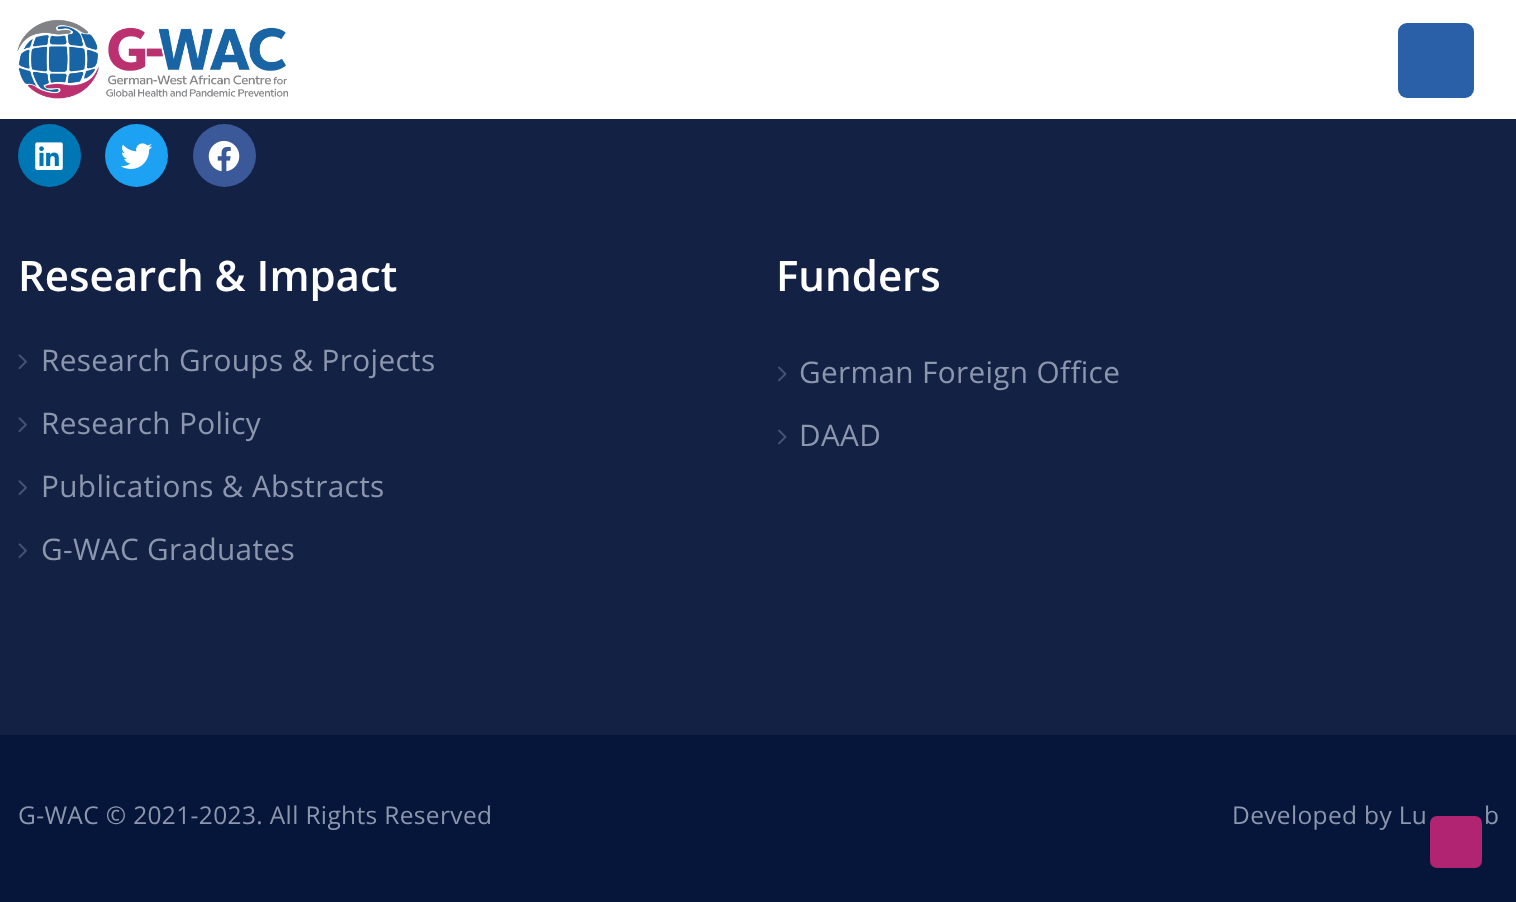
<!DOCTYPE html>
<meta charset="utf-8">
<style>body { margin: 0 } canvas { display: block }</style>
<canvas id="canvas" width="1516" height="902"></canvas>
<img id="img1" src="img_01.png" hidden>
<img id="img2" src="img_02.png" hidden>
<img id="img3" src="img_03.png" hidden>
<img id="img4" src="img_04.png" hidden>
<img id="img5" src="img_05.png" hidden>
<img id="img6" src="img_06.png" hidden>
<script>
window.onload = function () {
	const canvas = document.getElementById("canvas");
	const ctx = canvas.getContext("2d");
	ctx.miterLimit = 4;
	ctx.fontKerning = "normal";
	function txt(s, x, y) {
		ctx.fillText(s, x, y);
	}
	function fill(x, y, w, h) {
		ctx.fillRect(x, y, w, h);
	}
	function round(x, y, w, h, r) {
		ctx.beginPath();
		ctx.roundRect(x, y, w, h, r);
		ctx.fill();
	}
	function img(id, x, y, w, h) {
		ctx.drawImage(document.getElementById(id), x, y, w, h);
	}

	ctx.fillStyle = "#132244";
	fill(0, 0, 1516, 902);
	ctx.fillStyle = "#FFFFFF";
	fill(0, 0, 1516, 119);
	img("img1", 17, 19, 271, 80);
	ctx.fillStyle = "#2A60A7";
	round(1398, 23, 76, 75, 9);
	ctx.fillStyle = "#0077B5";
	ctx.beginPath();
	ctx.arc(49.5, 155.5, 31.5, 0, Math.PI * 2);
	ctx.fill();
	img("img2", 35, 142, 28, 28);
	ctx.fillStyle = "#1DA1F2";
	ctx.beginPath();
	ctx.arc(136.5, 155.5, 31.5, 0, Math.PI * 2);
	ctx.fill();
	img("img3", 121, 143, 32, 26);
	ctx.fillStyle = "#3B5998";
	ctx.beginPath();
	ctx.arc(224.5, 155.5, 31.5, 0, Math.PI * 2);
	ctx.fill();
	img("img4", 208, 140, 32, 32);
	img("img5", 18, 354, 9, 15);
	img("img5", 18, 417, 9, 15);
	img("img5", 18, 480, 9, 15);
	img("img5", 18, 543, 9, 15);
	img("img6", 778, 366, 9, 16);
	img("img6", 778, 429, 9, 16);
	ctx.fillStyle = "#06163A";
	fill(0, 735, 1516, 167);
	ctx.fillStyle = "#B02472";
	round(1430, 816, 52, 52, 7);
	ctx.font = "600 42px Open Sans";
	ctx.fillStyle = "#FFFFFF";
	txt("Research & Impact", 18, 291);
	ctx.letterSpacing = "0.35px";
	ctx.font = "29.75px Open Sans";
	ctx.fillStyle = "#8C96AC";
	txt("Research Groups & Projects", 41, 371);
	txt("Research Policy", 41, 434);
	txt("Publications & Abstracts", 41, 497);
	txt("G-WAC Graduates", 41, 560);
	ctx.letterSpacing = "0px";
	ctx.font = "600 42px Open Sans";
	ctx.fillStyle = "#FFFFFF";
	txt("Funders", 776, 291);
	ctx.letterSpacing = "0.35px";
	ctx.font = "29.75px Open Sans";
	ctx.fillStyle = "#8C96AC";
	txt("German Foreign Office", 799, 383);
	txt("DAAD", 799, 446);
	ctx.font = "24.5px Open Sans";
	txt("G-WAC © 2021-2023. All Rights Reserved", 18, 824);
	txt("Developed by Lu", 1232, 824);
	txt("b", 1484, 824);
};
</script>
